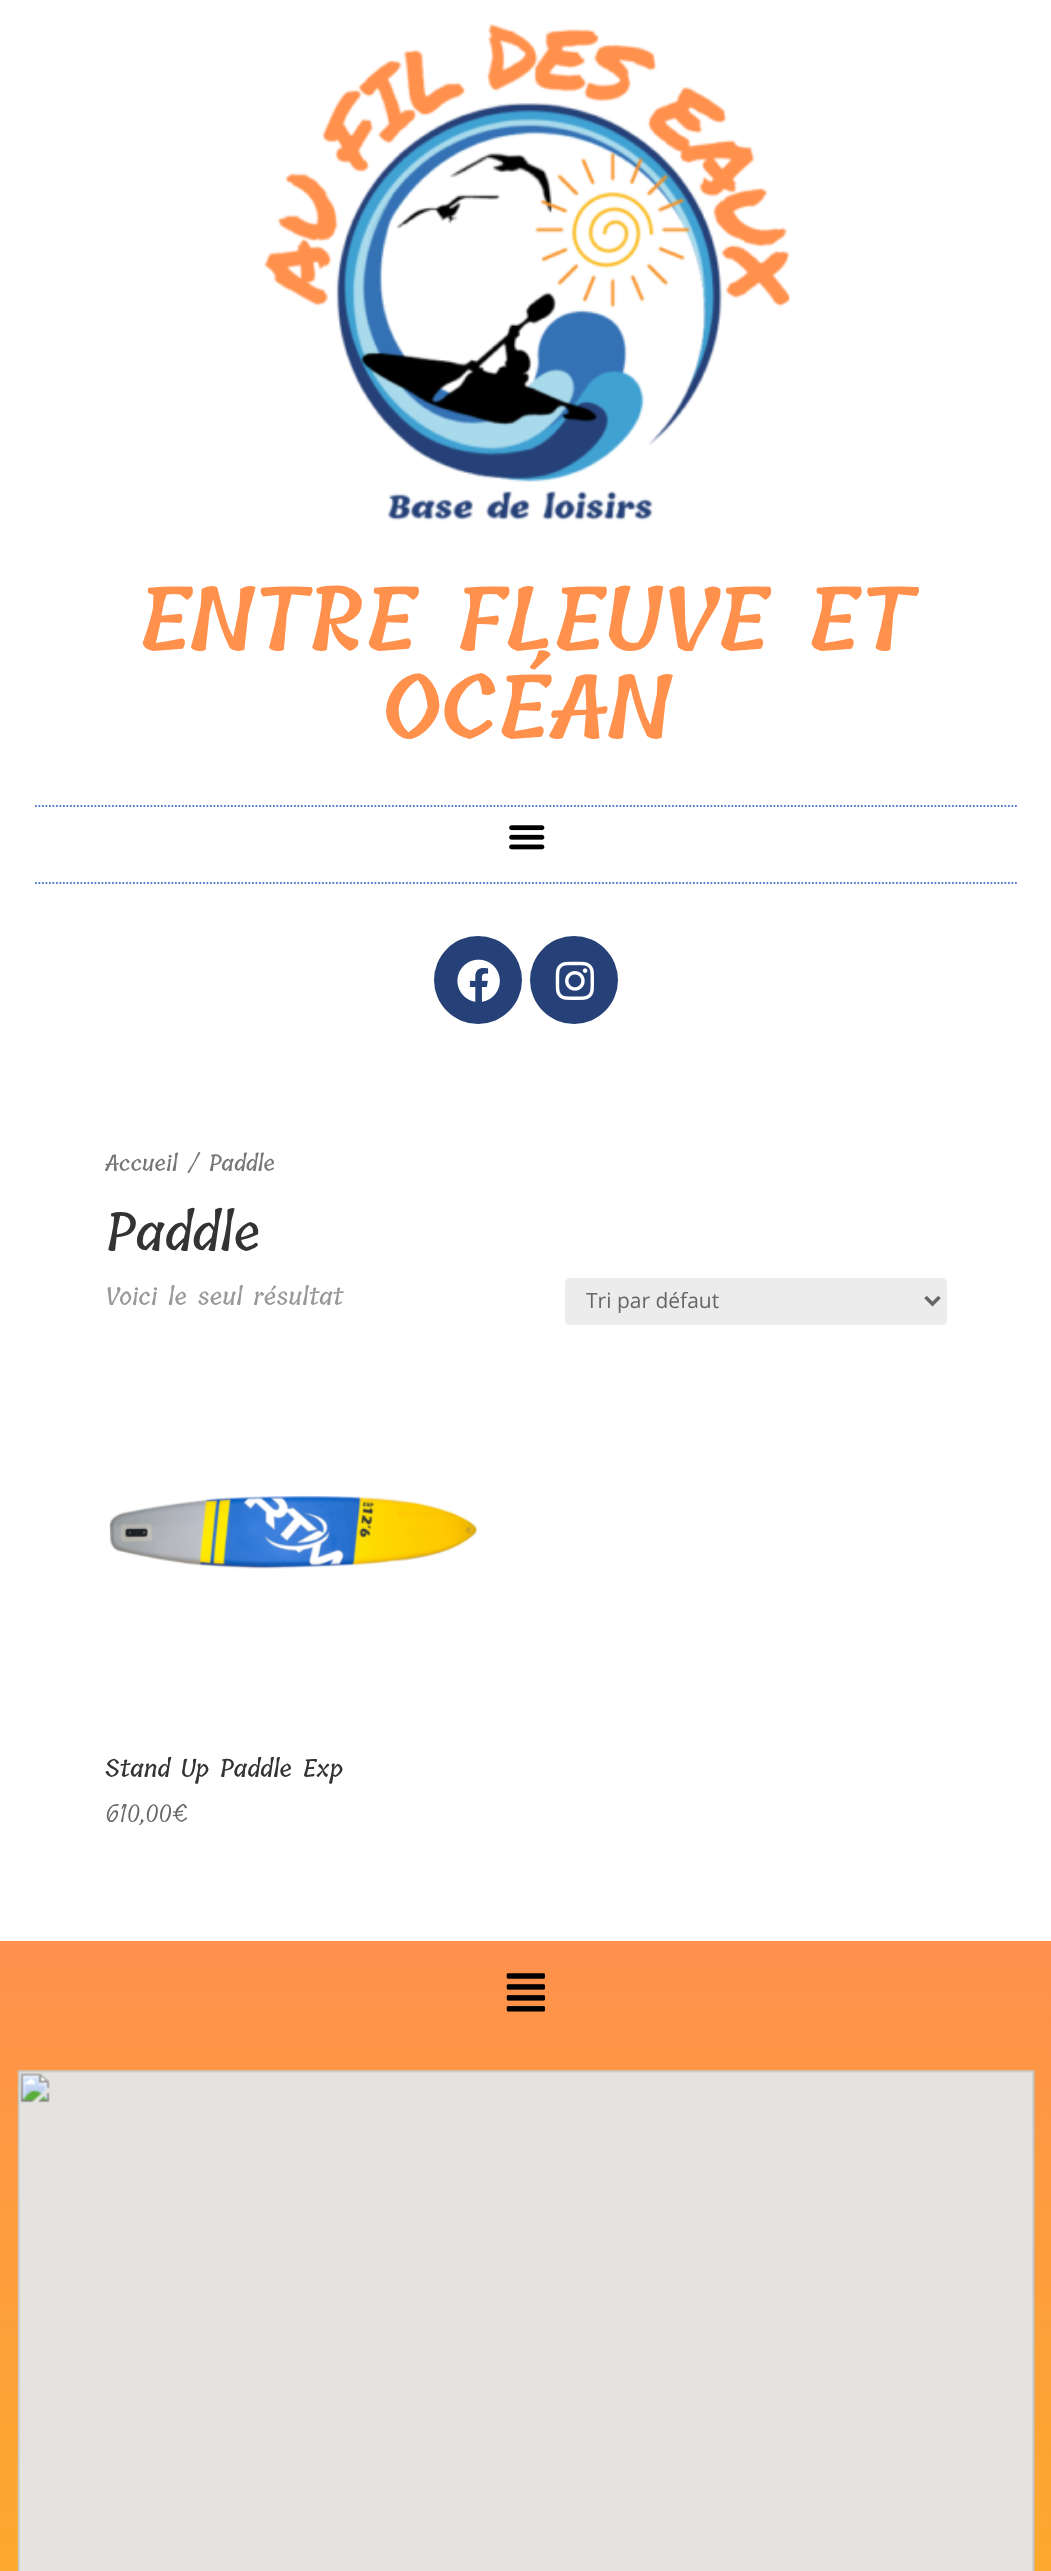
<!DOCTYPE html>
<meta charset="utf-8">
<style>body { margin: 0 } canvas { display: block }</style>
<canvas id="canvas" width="1051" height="2571"></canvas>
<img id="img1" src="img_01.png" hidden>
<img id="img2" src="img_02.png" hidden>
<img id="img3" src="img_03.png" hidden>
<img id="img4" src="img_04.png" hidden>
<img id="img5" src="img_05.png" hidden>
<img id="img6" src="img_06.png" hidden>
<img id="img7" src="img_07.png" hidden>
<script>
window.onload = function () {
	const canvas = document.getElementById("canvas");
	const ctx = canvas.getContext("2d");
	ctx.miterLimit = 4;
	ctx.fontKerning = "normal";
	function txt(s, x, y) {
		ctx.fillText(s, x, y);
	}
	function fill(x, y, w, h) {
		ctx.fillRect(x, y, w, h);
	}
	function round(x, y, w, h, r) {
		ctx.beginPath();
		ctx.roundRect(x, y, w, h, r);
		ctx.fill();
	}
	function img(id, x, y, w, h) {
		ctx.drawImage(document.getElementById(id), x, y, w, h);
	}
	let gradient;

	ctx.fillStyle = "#FFFFFF";
	fill(0, 0, 1051, 2571);
	img("img1", 264, 24, 526, 497);
	ctx.beginPath();
	ctx.moveTo(35, 806);
	ctx.lineTo(1017, 806);
	ctx.strokeStyle = "#547BCF";
	ctx.lineWidth = 1.8;
	ctx.setLineDash([1.75, 1.75]);
	ctx.stroke();
	ctx.beginPath();
	ctx.moveTo(35, 883);
	ctx.lineTo(1017, 883);
	ctx.stroke();
	img("img2", 509, 825, 36, 25);
	ctx.fillStyle = "#264178";
	ctx.beginPath();
	ctx.arc(478, 980, 44, 0, Math.PI * 2);
	ctx.fill();
	img("img3", 457, 959, 43, 43);
	ctx.beginPath();
	ctx.arc(574, 980, 44, 0, Math.PI * 2);
	ctx.fill();
	img("img4", 555, 961, 39, 39);
	ctx.fillStyle = "#ECECEC";
	round(565, 1278, 382, 47, 5);
	ctx.beginPath();
	ctx.moveTo(925.5, 1297);
	ctx.lineTo(932.5, 1304);
	ctx.lineTo(939.5, 1297);
	ctx.strokeStyle = "#666666";
	ctx.lineWidth = 3.5;
	ctx.setLineDash([]);
	ctx.stroke();
	img("img5", 108, 1495, 370, 74);
	gradient = ctx.createLinearGradient(526, 1941, 526, 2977);
	gradient.addColorStop(0, "#FF914D");
	gradient.addColorStop(1, "#FAB919");
	ctx.fillStyle = gradient;
	fill(0, 1941, 1051, 630);
	img("img6", 506, 1973, 39, 39);
	img("img7", 17, 2070, 1018, 501);
	ctx.font = "600 87.5px Tillana";
	ctx.fillStyle = "#FF914D";
	txt("ENTRE FLEUVE ET", 138, 651);
	txt("OCÉAN", 382, 739);
	ctx.font = "500 22.5px Tillana";
	ctx.fillStyle = "#767676";
	txt("Accueil / Paddle", 105, 1171);
	ctx.font = "500 52.5px Tillana";
	ctx.fillStyle = "#333333";
	txt("Paddle", 105, 1251);
	ctx.font = "500 24.5px Tillana";
	ctx.fillStyle = "#999999";
	txt("Voici le seul résultat", 105, 1305);
	ctx.font = "21px Open Sans";
	ctx.fillStyle = "#666666";
	txt("Tri par défaut", 586, 1308);
	ctx.font = "500 24.5px Tillana";
	ctx.fillStyle = "#333333";
	txt("Stand Up Paddle Exp", 105, 1777);
	ctx.font = "24.5px Tillana";
	ctx.fillStyle = "#666666";
	txt("610,00€", 105, 1822);
};
</script>
